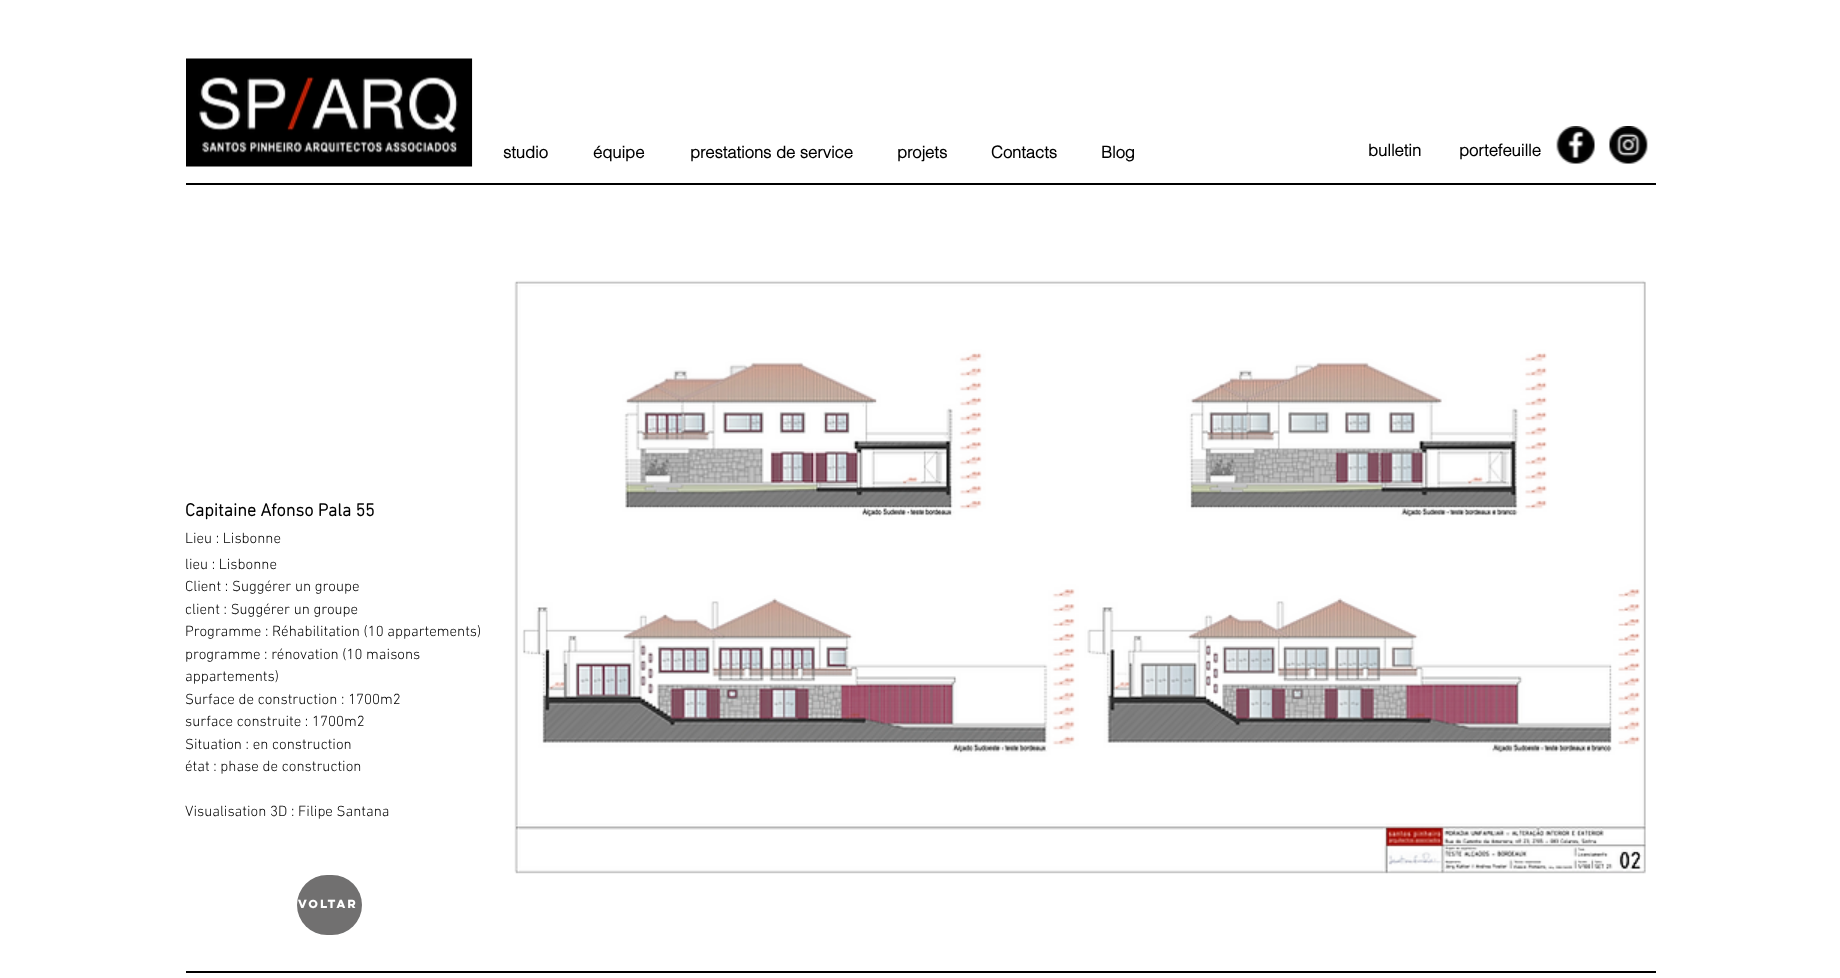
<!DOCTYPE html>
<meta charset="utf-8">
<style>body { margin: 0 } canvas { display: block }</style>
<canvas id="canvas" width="1840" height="978"></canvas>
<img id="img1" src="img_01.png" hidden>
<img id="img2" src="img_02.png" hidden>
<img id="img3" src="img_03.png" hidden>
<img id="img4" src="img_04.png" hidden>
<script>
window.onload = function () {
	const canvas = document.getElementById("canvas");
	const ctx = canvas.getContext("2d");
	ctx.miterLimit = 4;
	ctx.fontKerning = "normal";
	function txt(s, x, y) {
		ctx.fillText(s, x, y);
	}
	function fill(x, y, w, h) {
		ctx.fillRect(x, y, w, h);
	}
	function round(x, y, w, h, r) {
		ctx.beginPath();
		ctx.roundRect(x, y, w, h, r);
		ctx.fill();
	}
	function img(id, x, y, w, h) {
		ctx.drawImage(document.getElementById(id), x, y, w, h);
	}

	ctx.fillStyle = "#FFFFFF";
	fill(0, 0, 1840, 978);
	img("img1", 186, 58, 287, 109);
	img("img2", 1556, 126, 39, 38);
	img("img3", 1609, 126, 39, 38);
	ctx.fillStyle = "#000000";
	fill(186, 183, 1470, 2);
	img("img4", 514, 280, 1132, 594);
	ctx.fillStyle = "#717070";
	round(297, 875, 65, 60, 30);
	ctx.fillStyle = "#000000";
	fill(186, 971, 1470, 2);
	ctx.font = "bold 16.5px helvetica";
	txt("studio", 503, 158);
	txt("équipe", 593, 158);
	txt("prestations de service", 690, 158);
	txt("projets", 897, 158);
	txt("Contacts", 991, 158);
	txt("Blog", 1101, 158);
	txt("bulletin", 1368, 156);
	txt("portefeuille", 1459, 156);
	ctx.font = "bold 18px 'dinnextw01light'";
	txt("Capitaine Afonso Pala 55", 185, 516);
	ctx.font = "300 15px 'dinnextw01light'";
	txt("Lieu : Lisbonne", 185, 543);
	txt("lieu : Lisbonne", 185, 569);
	txt("Client : Suggérer un groupe", 185, 591);
	txt("client : Suggérer un groupe", 185, 614);
	txt("Programme : Réhabilitation (10 appartements)", 185, 636);
	txt("programme : rénovation (10 maisons", 185, 659);
	txt("appartements)", 185, 681);
	txt("Surface de construction : 1700m2", 185, 704);
	txt("surface construite : 1700m2", 185, 726);
	txt("Situation : en construction", 185, 749);
	txt("état : phase de construction", 185, 771);
	txt("Visualisation 3D : Filipe Santana", 185, 816);
	ctx.font = "bold 10.5px 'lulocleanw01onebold'";
	ctx.fillStyle = "#FFFFFF";
	txt("voltar", 298, 908);
};
</script>
